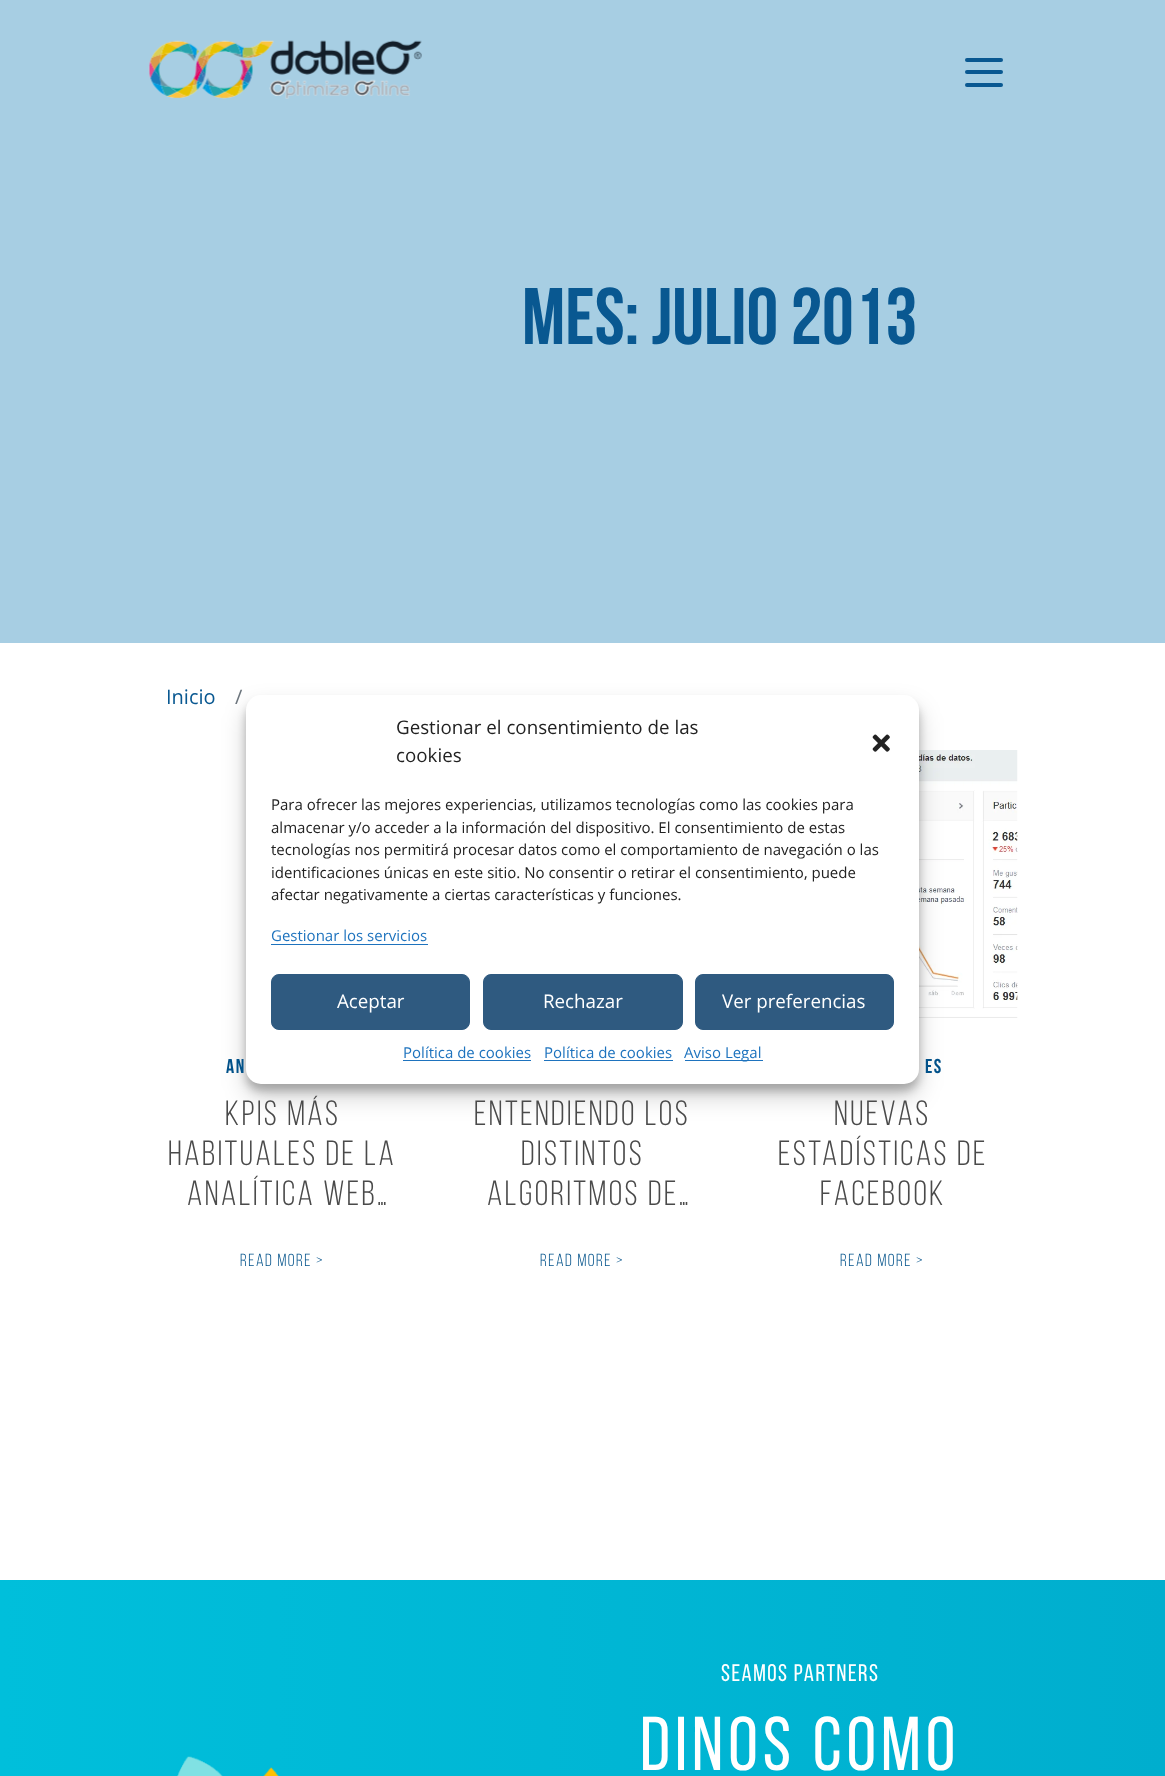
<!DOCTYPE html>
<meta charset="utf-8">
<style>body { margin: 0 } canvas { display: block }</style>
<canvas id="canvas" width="1165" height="1776"></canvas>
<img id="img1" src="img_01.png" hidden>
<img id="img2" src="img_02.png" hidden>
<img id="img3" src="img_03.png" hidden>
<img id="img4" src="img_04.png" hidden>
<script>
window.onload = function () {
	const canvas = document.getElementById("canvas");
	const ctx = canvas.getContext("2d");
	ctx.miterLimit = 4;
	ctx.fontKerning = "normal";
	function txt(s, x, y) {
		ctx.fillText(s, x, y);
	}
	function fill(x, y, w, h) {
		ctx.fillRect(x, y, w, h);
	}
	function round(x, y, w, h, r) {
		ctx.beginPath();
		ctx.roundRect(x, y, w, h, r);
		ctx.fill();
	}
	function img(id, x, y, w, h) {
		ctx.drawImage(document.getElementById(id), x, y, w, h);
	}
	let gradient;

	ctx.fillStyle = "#FFFFFF";
	fill(0, 0, 1165, 1776);
	ctx.fillStyle = "#A7CEE3";
	fill(0, 0, 1165, 643);
	img("img1", 148, 40, 274, 59);
	ctx.fillStyle = "#095891";
	round(965, 58, 38, 4, 2);
	round(965, 70, 38, 4, 2);
	round(965, 83, 38, 4, 2);
	img("img2", 919, 750, 99, 268);
	ctx.fillStyle = "rgba(0, 0, 0, 0.23)";
	ctx.filter = "blur(4px)";
	ctx.beginPath();
	ctx.roundRect(246, 703, 673, 388, 15);
	ctx.fill();
	ctx.filter = "none";
	ctx.fillStyle = "rgba(0, 0, 0, 0.19)";
	ctx.filter = "blur(12.5px)";
	ctx.beginPath();
	ctx.roundRect(246, 708, 673, 388, 15);
	ctx.fill();
	ctx.filter = "none";
	ctx.fillStyle = "#FFFFFF";
	round(246, 695, 673, 389, 15);
	img("img3", 872, 734, 18, 18);
	ctx.fillStyle = "#1E73BE";
	fill(271, 944, 157, 1);
	ctx.fillStyle = "#2F5A80";
	ctx.beginPath();
	ctx.roundRect(271.5, 974.5, 198, 55, 7.5);
	ctx.fill();
	ctx.strokeStyle = "#2F5A80";
	ctx.stroke();
	ctx.beginPath();
	ctx.roundRect(483.5, 974.5, 199, 55, 7.5);
	ctx.fill();
	ctx.stroke();
	ctx.beginPath();
	ctx.roundRect(695.5, 974.5, 198, 55, 7.5);
	ctx.fill();
	ctx.stroke();
	ctx.fillStyle = "#1E73BE";
	fill(403, 1060, 128, 1);
	fill(544, 1060, 129, 1);
	fill(685, 1060, 78, 1);
	gradient = ctx.createLinearGradient(0, 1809, 1165, 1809);
	gradient.addColorStop(0, "#00BFDB");
	gradient.addColorStop(1, "#00AECE");
	ctx.fillStyle = gradient;
	fill(0, 1580, 1165, 196);
	img("img4", 177, 1756, 102, 20);
	ctx.font = "bold 80px Bebas Neue";
	ctx.fillStyle = "#095891";
	txt("Mes: julio 2013", 522, 344);
	ctx.font = "20px Open Sans";
	txt("Inicio", 166, 704);
	ctx.fillStyle = "#6C757D";
	txt("/", 235, 704);
	ctx.letterSpacing = "1.5px";
	ctx.font = "bold 20px Bebas Neue";
	ctx.fillStyle = "#02528A";
	txt("AN", 226, 1073);
	ctx.letterSpacing = "2.5px";
	ctx.font = "35px 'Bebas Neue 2'";
	ctx.fillStyle = "#4A4A4A";
	txt("KPIs más", 225, 1125);
	txt("Habituales de la", 168, 1165);
	txt("Analítica Web…", 187, 1205);
	ctx.letterSpacing = "1.5px";
	ctx.font = "17.5px 'Bebas Neue 2'";
	ctx.fillStyle = "#02528A";
	txt("READ MORE >", 240, 1266);
	ctx.letterSpacing = "2.5px";
	ctx.font = "35px 'Bebas Neue 2'";
	ctx.fillStyle = "#4A4A4A";
	txt("Entendiendo los", 474, 1125);
	txt("Distintos", 521, 1165);
	txt("Algoritmos de…", 487, 1205);
	ctx.letterSpacing = "1.5px";
	ctx.font = "17.5px 'Bebas Neue 2'";
	ctx.fillStyle = "#02528A";
	txt("READ MORE >", 540, 1266);
	ctx.font = "bold 20px Bebas Neue";
	txt("ES", 925, 1073);
	ctx.letterSpacing = "2.5px";
	ctx.font = "35px 'Bebas Neue 2'";
	ctx.fillStyle = "#4A4A4A";
	txt("Nuevas", 834, 1125);
	txt("Estadísticas de", 778, 1165);
	txt("Facebook", 820, 1205);
	ctx.letterSpacing = "1.5px";
	ctx.font = "17.5px 'Bebas Neue 2'";
	ctx.fillStyle = "#02528A";
	txt("READ MORE >", 840, 1266);
	ctx.letterSpacing = "0px";
	ctx.font = "18.75px Open Sans";
	ctx.fillStyle = "#222222";
	txt("Gestionar el consentimiento de las", 396, 734);
	txt("cookies", 396, 762);
	ctx.font = "15px Open Sans";
	txt("Para ofrecer las mejores experiencias, utilizamos tecnologías como las cookies para", 271, 810);
	txt("almacenar y/o acceder a la información del dispositivo. El consentimiento de estas", 271, 833);
	txt("tecnologías nos permitirá procesar datos como el comportamiento de navegación o las", 271, 855);
	txt("identificaciones únicas en este sitio. No consentir o retirar el consentimiento, puede", 271, 878);
	txt("afectar negativamente a ciertas características y funciones.", 271, 900);
	ctx.fillStyle = "#1E73BE";
	txt("Gestionar los servicios", 271, 941);
	ctx.font = "18.75px Open Sans";
	ctx.fillStyle = "#FFFFFF";
	txt("Aceptar", 337, 1008);
	txt("Rechazar", 543, 1008);
	txt("Ver preferencias", 722, 1008);
	ctx.font = "15px Open Sans";
	ctx.fillStyle = "#1E73BE";
	txt("Política de cookies", 403, 1058);
	txt("Política de cookies", 544, 1058);
	txt("Aviso Legal", 684, 1058);
	ctx.letterSpacing = "1.5px";
	ctx.font = "24px Bebas Neue";
	ctx.fillStyle = "#FFFFFF";
	txt("SEAMOS PARTNERS", 721, 1681);
	ctx.letterSpacing = "5px";
	ctx.font = "76px Bebas Neue";
	txt("DINOS COMO", 640, 1770);
};
</script>
